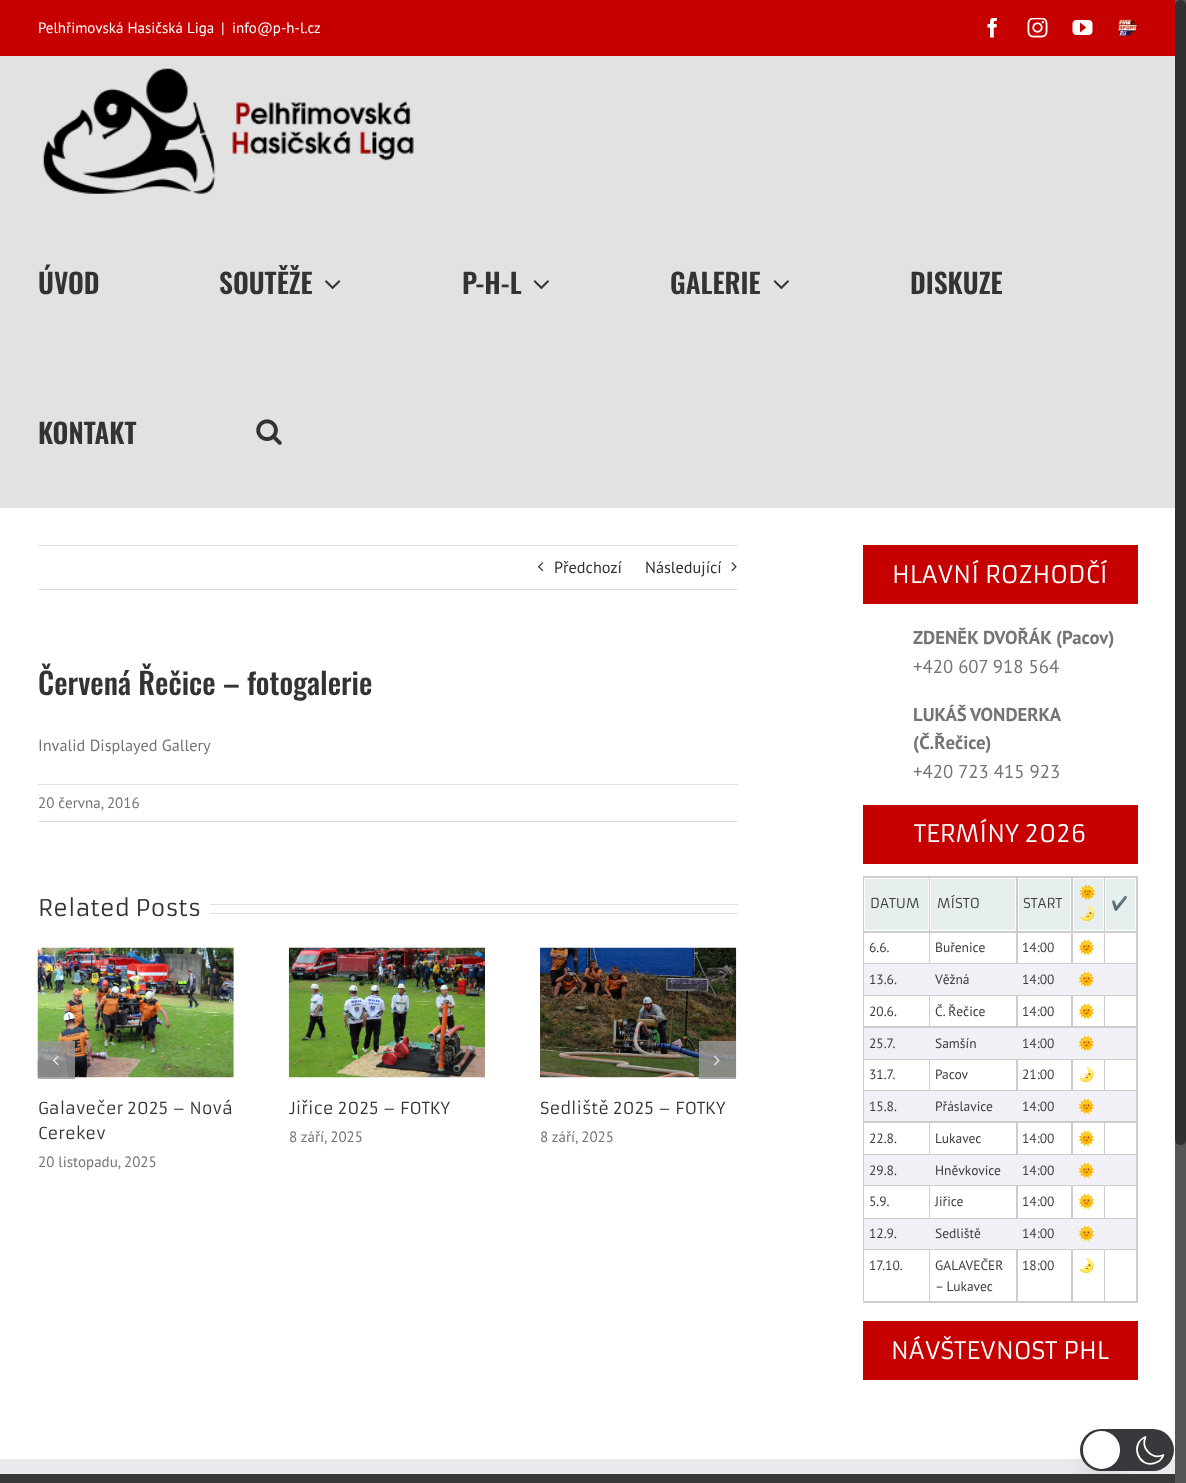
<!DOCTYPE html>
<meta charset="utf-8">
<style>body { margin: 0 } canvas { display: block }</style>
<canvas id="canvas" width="1186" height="1483"></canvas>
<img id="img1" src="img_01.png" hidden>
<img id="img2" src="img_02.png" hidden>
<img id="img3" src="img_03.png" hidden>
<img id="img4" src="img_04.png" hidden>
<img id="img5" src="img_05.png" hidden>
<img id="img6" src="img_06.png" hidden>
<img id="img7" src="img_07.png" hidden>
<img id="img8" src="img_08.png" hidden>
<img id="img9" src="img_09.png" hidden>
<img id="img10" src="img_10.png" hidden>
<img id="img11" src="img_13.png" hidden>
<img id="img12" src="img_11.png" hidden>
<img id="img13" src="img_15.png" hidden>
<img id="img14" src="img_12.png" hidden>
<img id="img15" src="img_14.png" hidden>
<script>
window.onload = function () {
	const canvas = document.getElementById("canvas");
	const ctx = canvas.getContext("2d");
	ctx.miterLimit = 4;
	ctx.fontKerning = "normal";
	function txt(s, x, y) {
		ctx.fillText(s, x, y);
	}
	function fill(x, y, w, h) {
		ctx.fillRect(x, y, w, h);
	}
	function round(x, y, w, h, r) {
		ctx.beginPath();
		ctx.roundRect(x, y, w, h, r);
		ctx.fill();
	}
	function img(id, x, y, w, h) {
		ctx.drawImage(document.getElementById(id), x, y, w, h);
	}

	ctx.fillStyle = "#FFFFFF";
	fill(0, 0, 1186, 1483);
	ctx.fillStyle = "#C60000";
	fill(0, 0, 1175, 56);
	img("img1", 987, 18, 10, 20);
	img("img2", 1027, 18, 21, 20);
	img("img3", 1072, 20, 21, 15);
	img("img4", 1118, 19, 19, 17);
	ctx.fillStyle = "#E2E2E2";
	fill(0, 56, 1175, 452);
	ctx.fillStyle = "#E5E5E5";
	fill(0, 506, 1175, 1);
	img("img5", 43, 68, 371, 126);
	img("img6", 325, 280, 16, 10);
	img("img7", 533, 280, 16, 10);
	img("img7", 773, 280, 16, 10);
	img("img8", 256, 419, 26, 26);
	ctx.fillStyle = "#E0DEDE";
	fill(38, 545, 700, 1);
	fill(38, 589, 700, 1);
	img("img9", 538, 562, 6, 10);
	img("img10", 731, 562, 6, 10);
	fill(38, 784, 700, 1);
	fill(38, 821, 700, 1);
	fill(210, 904, 528, 1);
	fill(210, 913, 528, 1);
	img("img11", 37, 947, 197, 131);
	ctx.fillStyle = "rgba(153, 153, 153, 0.8)";
	fill(38, 1041, 37, 38);
	img("img12", 53, 1055, 6, 11);
	img("img13", 540, 947, 197, 131);
	fill(699, 1041, 37, 38);
	img("img14", 714, 1055, 6, 11);
	img("img15", 288, 947, 197, 131);
	ctx.fillStyle = "#C60000";
	fill(863, 545, 275, 59);
	fill(863, 805, 275, 59);
	ctx.fillStyle = "#CDCDCD";
	fill(863, 876, 275, 427);
	ctx.fillStyle = "#E6EEEE";
	ctx.beginPath();
	ctx.rect(864.5, 878.5, 64, 52);
	ctx.fill();
	ctx.strokeStyle = "#FFFFFF";
	ctx.stroke();
	ctx.beginPath();
	ctx.rect(930.5, 878.5, 85, 52);
	ctx.fill();
	ctx.stroke();
	ctx.beginPath();
	ctx.rect(1018.5, 878.5, 52, 52);
	ctx.fill();
	ctx.stroke();
	ctx.beginPath();
	ctx.rect(1073.5, 878.5, 30, 52);
	ctx.fill();
	ctx.stroke();
	ctx.beginPath();
	ctx.rect(1105.5, 878.5, 30, 52);
	ctx.fill();
	ctx.stroke();
	ctx.fillStyle = "#FFFFFF";
	fill(864, 933, 65, 30);
	fill(930, 933, 86, 30);
	fill(1018, 933, 53, 30);
	fill(1073, 933, 31, 30);
	fill(1105, 933, 31, 30);
	ctx.fillStyle = "#F2F2F2";
	fill(929, 964, 176, 31);
	ctx.fillStyle = "#F0F0F6";
	fill(864, 964, 65, 31);
	fill(930, 964, 86, 31);
	fill(1018, 964, 53, 31);
	fill(1073, 964, 31, 31);
	fill(1105, 964, 31, 31);
	ctx.fillStyle = "#FFFFFF";
	fill(864, 996, 65, 30);
	fill(930, 996, 86, 30);
	fill(1018, 996, 53, 30);
	fill(1073, 996, 31, 30);
	fill(1105, 996, 31, 30);
	ctx.fillStyle = "#F2F2F2";
	fill(929, 1028, 176, 31);
	ctx.fillStyle = "#F0F0F6";
	fill(864, 1028, 65, 31);
	fill(930, 1028, 86, 31);
	fill(1018, 1028, 53, 31);
	fill(1073, 1028, 31, 31);
	fill(1105, 1028, 31, 31);
	ctx.fillStyle = "#FFFFFF";
	fill(864, 1060, 65, 30);
	fill(930, 1060, 86, 30);
	fill(1018, 1060, 53, 30);
	fill(1073, 1060, 31, 30);
	fill(1105, 1060, 31, 30);
	ctx.fillStyle = "#F2F2F2";
	fill(929, 1091, 176, 30);
	ctx.fillStyle = "#F0F0F6";
	fill(864, 1091, 65, 30);
	fill(930, 1091, 86, 30);
	fill(1018, 1091, 53, 30);
	fill(1073, 1091, 31, 30);
	fill(1105, 1091, 31, 30);
	ctx.fillStyle = "#FFFFFF";
	fill(864, 1123, 65, 31);
	fill(930, 1123, 86, 31);
	fill(1018, 1123, 53, 31);
	fill(1073, 1123, 31, 31);
	fill(1105, 1123, 31, 31);
	ctx.fillStyle = "#F2F2F2";
	fill(929, 1155, 176, 30);
	ctx.fillStyle = "#F0F0F6";
	fill(864, 1155, 65, 30);
	fill(930, 1155, 86, 30);
	fill(1018, 1155, 53, 30);
	fill(1073, 1155, 31, 30);
	fill(1105, 1155, 31, 30);
	ctx.fillStyle = "#FFFFFF";
	fill(864, 1186, 65, 32);
	fill(930, 1186, 86, 32);
	fill(1018, 1186, 53, 32);
	fill(1073, 1186, 31, 32);
	fill(1105, 1186, 31, 32);
	ctx.fillStyle = "#F2F2F2";
	fill(929, 1219, 176, 30);
	ctx.fillStyle = "#F0F0F6";
	fill(864, 1219, 65, 30);
	fill(930, 1219, 86, 30);
	fill(1018, 1219, 53, 30);
	fill(1073, 1219, 31, 30);
	fill(1105, 1219, 31, 30);
	ctx.fillStyle = "#FFFFFF";
	fill(864, 1250, 65, 51);
	fill(930, 1250, 86, 51);
	fill(1018, 1250, 53, 51);
	fill(1073, 1250, 31, 51);
	fill(1105, 1250, 31, 51);
	ctx.fillStyle = "#C60000";
	fill(863, 1321, 275, 59);
	ctx.fillStyle = "#363839";
	fill(0, 1474, 1175, 9);
	ctx.fillStyle = "#E9EAEE";
	fill(0, 1459, 1175, 15);
	ctx.fillStyle = "#555555";
	fill(1175, 0, 11, 1483);
	ctx.fillStyle = "#303030";
	round(1175, 0, 11, 1145, 5.5);
	ctx.fillStyle = "#39393D";
	round(1080, 1429, 94, 42, 21);
	ctx.beginPath();
	ctx.moveTo(1163.5, 1455);
	ctx.bezierCurveTo(1152, 1460, 1140.5, 1448.5, 1145.5, 1437);
	ctx.bezierCurveTo(1129.5, 1443.5, 1138, 1468.5, 1155, 1463);
	ctx.bezierCurveTo(1158.5, 1462, 1162, 1459, 1163.5, 1455);
	ctx.closePath();
	ctx.lineWidth = 1.8;
	ctx.lineCap = "round";
	ctx.lineJoin = "round";
	ctx.stroke();
	ctx.fillStyle = "rgba(0, 0, 0, 0.1)";
	ctx.filter = "blur(9.5px)";
	ctx.beginPath();
	ctx.roundRect(1086, 1448, 30, 30, 15);
	ctx.fill();
	ctx.filter = "none";
	ctx.fillStyle = "#FFFFFF";
	round(1083, 1431, 37, 38, 18.5);
	ctx.font = "15px PT Sans";
	txt("Pelhřimovská Hasičská Liga", 38, 33);
	txt("|", 221, 33);
	txt("info@p-h-l.cz", 232, 33);
	ctx.font = "600 27.5px Oswald";
	ctx.fillStyle = "#333333";
	txt("ÚVOD", 38, 294);
	txt("SOUTĚŽE", 219, 294);
	txt("P-H-L", 462, 294);
	txt("GALERIE", 670, 294);
	txt("DISKUZE", 910, 294);
	txt("KONTAKT", 38, 444);
	ctx.font = "16.25px PT Sans";
	txt("Předchozí", 554, 573);
	txt("Následující", 645, 573);
	ctx.font = "500 30px Oswald";
	txt("Červená Řečice – fotogalerie", 38, 695);
	ctx.font = "16.25px PT Sans";
	ctx.fillStyle = "#747474";
	txt("Invalid Displayed Gallery", 38, 751);
	ctx.font = "15px PT Sans";
	txt("20 června, 2016", 38, 808);
	ctx.font = "22.5px Armata";
	ctx.fillStyle = "#333333";
	txt("Related Posts", 38, 916);
	ctx.font = "16.25px Armata";
	txt("Galavečer 2025 – Nová", 38, 1114);
	txt("Cerekev", 38, 1139);
	ctx.font = "15px PT Sans";
	ctx.fillStyle = "#747474";
	txt("20 listopadu, 2025", 38, 1167);
	ctx.font = "16.25px Armata";
	ctx.fillStyle = "#333333";
	txt("Jiřice 2025 – FOTKY", 289, 1114);
	ctx.font = "15px PT Sans";
	ctx.fillStyle = "#747474";
	txt("8 září, 2025", 289, 1142);
	ctx.font = "16.25px Armata";
	ctx.fillStyle = "#333333";
	txt("Sedliště 2025 – FOTKY", 540, 1114);
	ctx.font = "15px PT Sans";
	ctx.fillStyle = "#747474";
	txt("8 září, 2025", 540, 1142);
	ctx.font = "23.75px Armata";
	ctx.fillStyle = "#FFFFFF";
	txt("HLAVNÍ ROZHODČÍ", 892, 583);
	ctx.font = "bold 18.75px PT Sans";
	ctx.fillStyle = "#747474";
	txt("ZDENĚK DVOŘÁK (Pacov)", 913, 644);
	ctx.font = "18.75px PT Sans";
	txt("+420 607 918 564", 913, 673);
	ctx.wordSpacing = "-1px";
	ctx.font = "bold 18.75px PT Sans";
	txt("LUKÁŠ VONDERKA", 913, 721);
	ctx.wordSpacing = "0px";
	txt("(Č.Řečice)", 913, 749);
	ctx.font = "18.75px PT Sans";
	txt("+420 723 415 923", 913, 778);
	ctx.font = "23.75px Armata";
	ctx.fillStyle = "#FFFFFF";
	txt("TERMÍNY 2026", 914, 842);
	ctx.font = "13.5px Armata";
	ctx.fillStyle = "#3D3D3D";
	txt("DATUM", 870, 908);
	txt("MÍSTO", 937, 908);
	txt("START", 1023, 908);
	ctx.font = "13.5px Noto Color Emoji";
	txt("🌞", 1079, 897);
	txt("🌛", 1079, 918);
	txt("✔️", 1111, 908);
	ctx.font = "13.5px PT Sans";
	txt("6.6.", 869, 952);
	txt("Buřenice", 935, 952);
	txt("14:00", 1022, 952);
	ctx.font = "13.5px Noto Color Emoji";
	txt("🌞", 1078, 952);
	ctx.font = "13.5px PT Sans";
	txt("13.6.", 869, 984);
	txt("Věžná", 935, 984);
	txt("14:00", 1022, 984);
	ctx.font = "13.5px Noto Color Emoji";
	txt("🌞", 1078, 984);
	ctx.font = "13.5px PT Sans";
	txt("20.6.", 869, 1016);
	txt("Č. Řečice", 935, 1016);
	txt("14:00", 1022, 1016);
	ctx.font = "13.5px Noto Color Emoji";
	txt("🌞", 1078, 1016);
	ctx.font = "13.5px PT Sans";
	txt("25.7.", 869, 1048);
	txt("Samšín", 935, 1048);
	txt("14:00", 1022, 1048);
	ctx.font = "13.5px Noto Color Emoji";
	txt("🌞", 1078, 1048);
	ctx.font = "13.5px PT Sans";
	txt("31.7.", 869, 1079);
	txt("Pacov", 935, 1079);
	txt("21:00", 1022, 1079);
	ctx.font = "13.5px Noto Color Emoji";
	txt("🌛", 1078, 1079);
	ctx.font = "13.5px PT Sans";
	txt("15.8.", 869, 1111);
	txt("Přáslavice", 935, 1111);
	txt("14:00", 1022, 1111);
	ctx.font = "13.5px Noto Color Emoji";
	txt("🌞", 1078, 1111);
	ctx.font = "13.5px PT Sans";
	txt("22.8.", 869, 1143);
	txt("Lukavec", 935, 1143);
	txt("14:00", 1022, 1143);
	ctx.font = "13.5px Noto Color Emoji";
	txt("🌞", 1078, 1143);
	ctx.font = "13.5px PT Sans";
	txt("29.8.", 869, 1175);
	txt("Hněvkovice", 935, 1175);
	txt("14:00", 1022, 1175);
	ctx.font = "13.5px Noto Color Emoji";
	txt("🌞", 1078, 1175);
	ctx.font = "13.5px PT Sans";
	txt("5.9.", 869, 1206);
	txt("Jiřice", 935, 1206);
	txt("14:00", 1022, 1206);
	ctx.font = "13.5px Noto Color Emoji";
	txt("🌞", 1078, 1206);
	ctx.font = "13.5px PT Sans";
	txt("12.9.", 869, 1238);
	txt("Sedliště", 935, 1238);
	txt("14:00", 1022, 1238);
	ctx.font = "13.5px Noto Color Emoji";
	txt("🌞", 1078, 1238);
	ctx.font = "13.5px PT Sans";
	txt("17.10.", 869, 1270);
	txt("GALAVEČER", 935, 1270);
	txt("– Lukavec", 935, 1291);
	txt("18:00", 1022, 1270);
	ctx.font = "13.5px Noto Color Emoji";
	txt("🌛", 1078, 1270);
	ctx.font = "23.75px Armata";
	ctx.fillStyle = "#FFFFFF";
	txt("NÁVŠTEVNOST PHL", 891, 1359);
};
</script>
